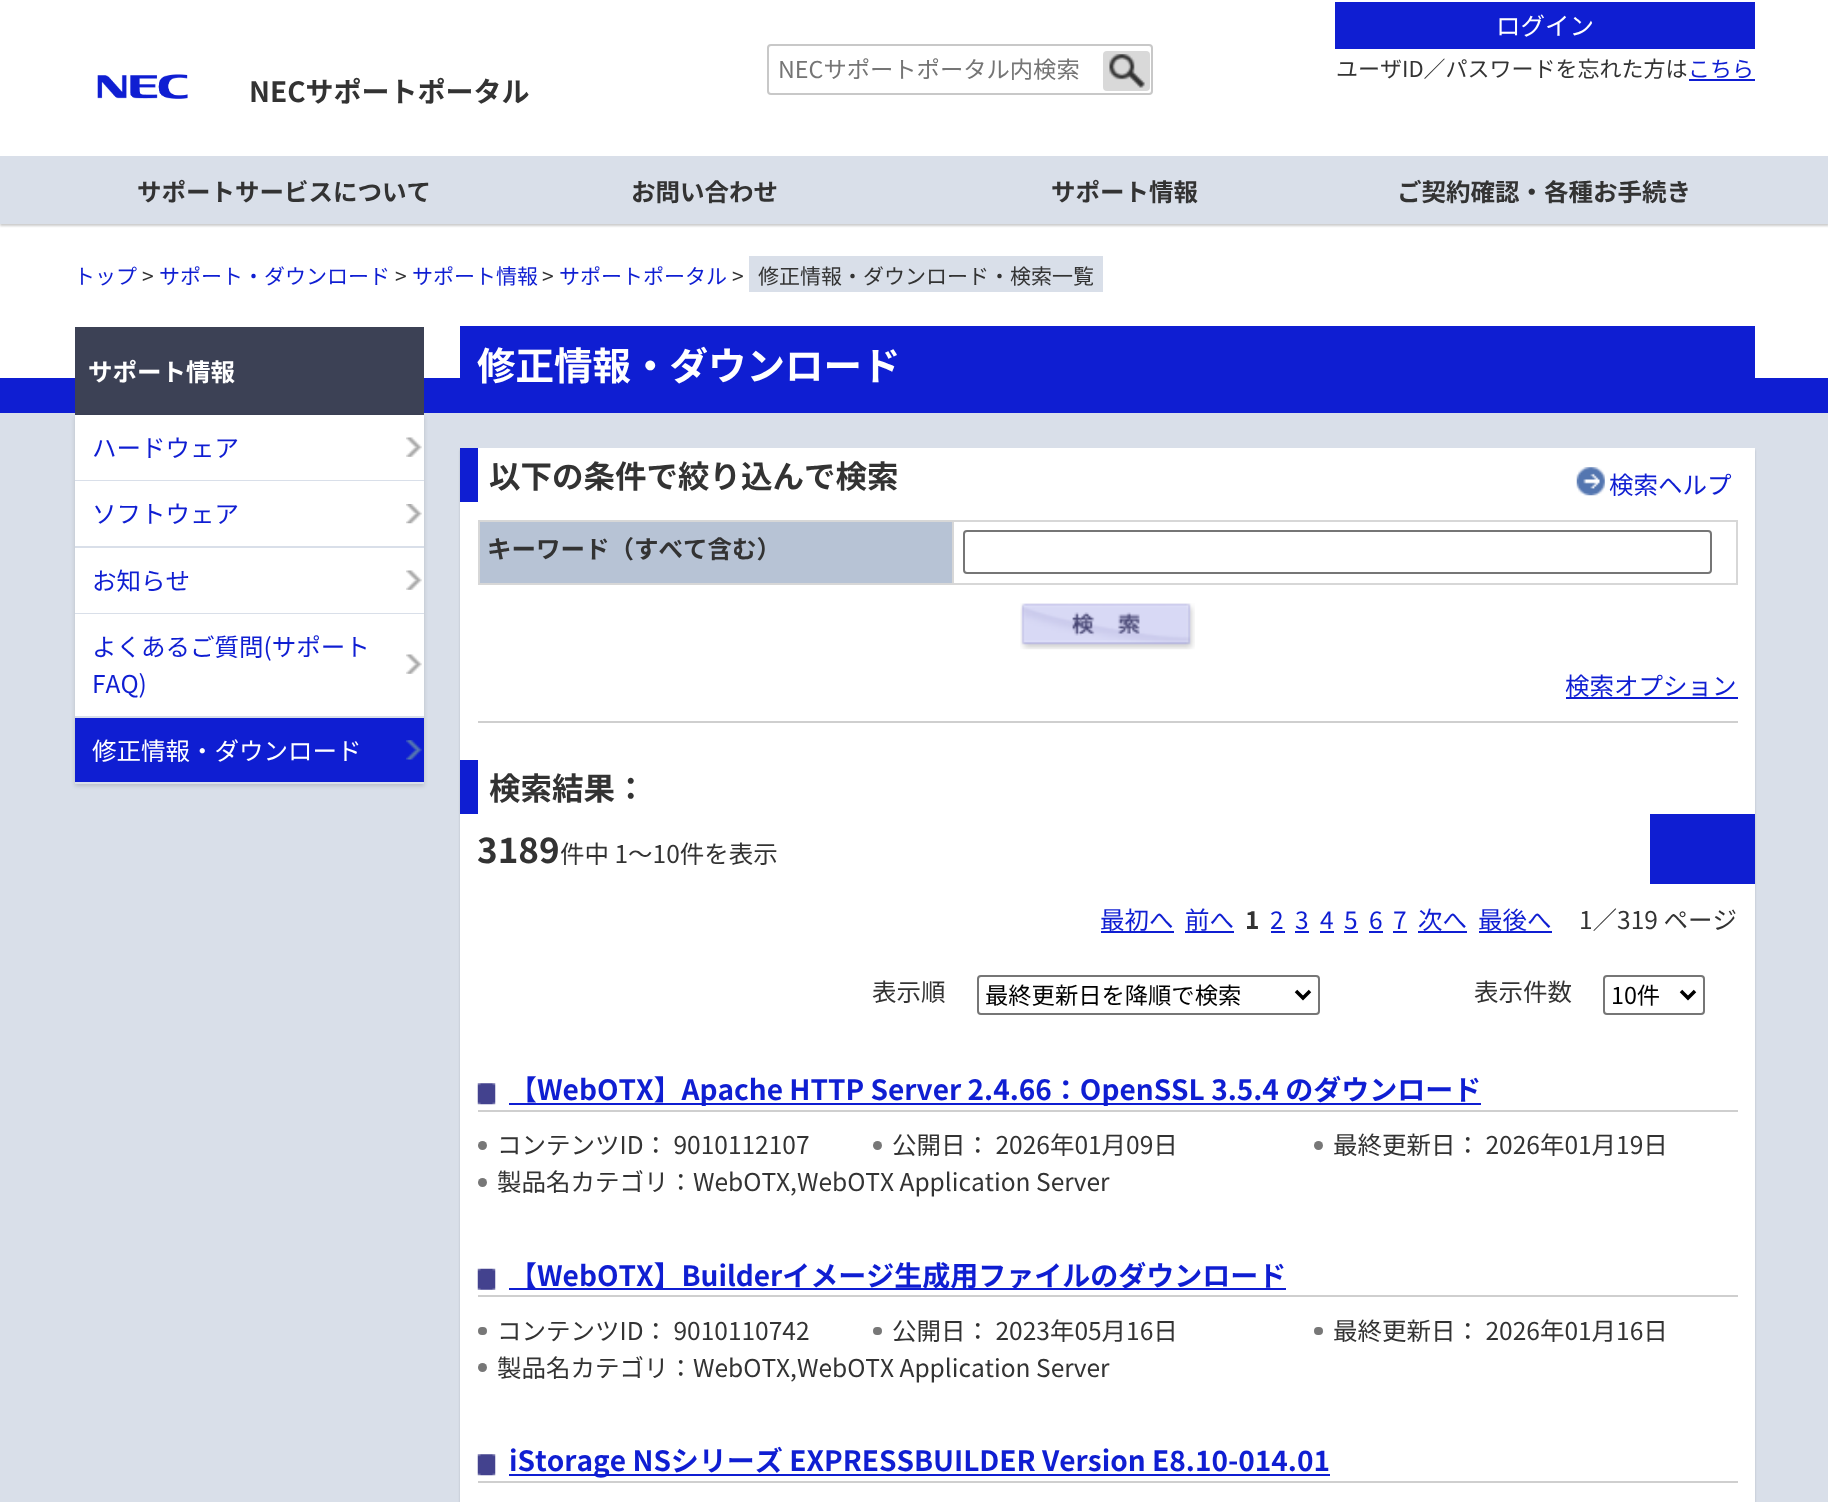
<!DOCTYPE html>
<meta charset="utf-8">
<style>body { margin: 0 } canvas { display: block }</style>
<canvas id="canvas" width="1828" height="1502"></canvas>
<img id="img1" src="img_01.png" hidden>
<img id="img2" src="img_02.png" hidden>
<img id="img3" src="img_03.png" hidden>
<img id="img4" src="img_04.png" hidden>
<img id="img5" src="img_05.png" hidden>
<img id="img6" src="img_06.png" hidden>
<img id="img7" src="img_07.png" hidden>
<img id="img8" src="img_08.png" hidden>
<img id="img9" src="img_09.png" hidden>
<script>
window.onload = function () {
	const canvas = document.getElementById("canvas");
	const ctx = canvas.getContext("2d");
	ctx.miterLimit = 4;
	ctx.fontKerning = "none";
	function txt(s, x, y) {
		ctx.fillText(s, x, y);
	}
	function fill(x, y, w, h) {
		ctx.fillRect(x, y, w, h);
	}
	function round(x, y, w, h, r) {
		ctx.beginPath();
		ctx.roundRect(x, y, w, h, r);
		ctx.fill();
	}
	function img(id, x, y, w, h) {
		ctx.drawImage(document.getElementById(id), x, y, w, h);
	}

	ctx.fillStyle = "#FFFFFF";
	fill(0, 0, 1828, 1502);
	ctx.beginPath();
	ctx.roundRect(768, 45, 384, 49, 3);
	ctx.strokeStyle = "#C8C8C8";
	ctx.lineWidth = 2;
	ctx.stroke();
	ctx.fillStyle = "#D9D9D9";
	round(1103, 51, 47, 40, 4);
	img("img1", 1109, 54, 36, 34);
	ctx.fillStyle = "#0F1ED2";
	fill(1335, 2, 420, 47);
	fill(1689, 79, 66, 2);
	img("img2", 97, 74, 91, 25);
	ctx.fillStyle = "rgba(0, 0, 0, 0.2)";
	ctx.filter = "blur(1px)";
	ctx.beginPath();
	ctx.rect(0, 158, 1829, 68);
	ctx.fill();
	ctx.filter = "none";
	ctx.fillStyle = "#D9DFE9";
	fill(0, 156, 1828, 68);
	fill(749, 256, 354, 36);
	fill(0, 413, 1828, 1089);
	ctx.fillStyle = "#0F1ED2";
	fill(0, 378, 1828, 35);
	ctx.fillStyle = "#3C4155";
	fill(75, 327, 349, 88);
	ctx.fillStyle = "rgba(0, 0, 0, 0.15)";
	ctx.filter = "blur(2px)";
	ctx.beginPath();
	ctx.rect(75, 417, 349, 369);
	ctx.fill();
	ctx.filter = "none";
	ctx.fillStyle = "#FFFFFF";
	fill(75, 415, 349, 65);
	ctx.fillStyle = "#D9DFE9";
	fill(75, 480, 349, 1);
	img("img3", 406, 437, 16, 20);
	ctx.fillStyle = "#FFFFFF";
	fill(75, 481, 349, 65);
	ctx.fillStyle = "#D9DFE9";
	fill(75, 546, 349, 2);
	img("img4", 406, 504, 16, 20);
	ctx.fillStyle = "#FFFFFF";
	fill(75, 548, 349, 65);
	ctx.fillStyle = "#D9DFE9";
	fill(75, 613, 349, 1);
	img("img3", 406, 570, 16, 20);
	ctx.fillStyle = "#FFFFFF";
	fill(75, 614, 349, 102);
	ctx.fillStyle = "#D9DFE9";
	fill(75, 716, 349, 2);
	img("img3", 406, 654, 16, 20);
	ctx.fillStyle = "#0F1ED2";
	fill(75, 718, 349, 64);
	ctx.fillStyle = "#D9DFE9";
	fill(75, 782, 349, 2);
	img("img5", 406, 740, 16, 20);
	ctx.fillStyle = "#0F1ED2";
	fill(460, 326, 1295, 52);
	ctx.fillStyle = "rgba(0, 0, 0, 0.15)";
	ctx.filter = "blur(1px)";
	ctx.beginPath();
	ctx.rect(460, 450, 1295, 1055);
	ctx.fill();
	ctx.filter = "none";
	ctx.fillStyle = "#FFFFFF";
	fill(460, 448, 1295, 1054);
	ctx.fillStyle = "#0F1ED2";
	fill(460, 448, 18, 54);
	img("img6", 1576, 467, 29, 29);
	ctx.fillStyle = "#D7D7D7";
	fill(478, 520, 1260, 2);
	fill(478, 520, 2, 65);
	ctx.fillStyle = "#B7C3D5";
	fill(480, 522, 472, 61);
	ctx.fillStyle = "#D7D7D7";
	fill(1736, 520, 2, 65);
	fill(952, 583, 786, 2);
	fill(952, 520, 2, 65);
	fill(478, 583, 476, 2);
	ctx.beginPath();
	ctx.roundRect(964, 531, 747, 42, 3);
	ctx.strokeStyle = "#767676";
	ctx.stroke();
	img("img7", 1020, 603, 175, 47);
	ctx.fillStyle = "#0F1ED2";
	fill(1566, 697, 172, 2);
	ctx.fillStyle = "#CFCFCF";
	fill(478, 721, 1260, 2);
	ctx.fillStyle = "#0F1ED2";
	fill(460, 760, 18, 54);
	fill(1650, 814, 105, 70);
	fill(1101, 931, 73, 2);
	fill(1185, 931, 49, 2);
	fill(1271, 931, 14, 2);
	fill(1295, 931, 14, 2);
	fill(1320, 931, 14, 2);
	fill(1344, 931, 14, 2);
	fill(1369, 931, 14, 2);
	fill(1393, 931, 14, 2);
	fill(1418, 931, 49, 2);
	fill(1479, 931, 73, 2);
	ctx.beginPath();
	ctx.roundRect(978, 976, 341, 38, 3);
	ctx.stroke();
	ctx.beginPath();
	ctx.moveTo(1296, 991);
	ctx.lineTo(1303, 998);
	ctx.lineTo(1310, 991);
	ctx.strokeStyle = "#000000";
	ctx.lineWidth = 3.5;
	ctx.stroke();
	ctx.beginPath();
	ctx.roundRect(1604, 976, 100, 38, 3);
	ctx.strokeStyle = "#767676";
	ctx.lineWidth = 2;
	ctx.stroke();
	ctx.beginPath();
	ctx.moveTo(1681, 991);
	ctx.lineTo(1688, 998);
	ctx.lineTo(1695, 991);
	ctx.strokeStyle = "#000000";
	ctx.lineWidth = 3.5;
	ctx.stroke();
	img("img8", 477, 1083, 19, 22);
	fill(509, 1103, 972, 2);
	ctx.fillStyle = "#CFCFCF";
	fill(478, 1110, 1260, 2);
	ctx.fillStyle = "#777777";
	ctx.beginPath();
	ctx.arc(482.5, 1145.5, 4.5, 0, Math.PI * 2);
	ctx.fill();
	ctx.beginPath();
	ctx.arc(877.5, 1145.5, 4.5, 0, Math.PI * 2);
	ctx.fill();
	ctx.beginPath();
	ctx.arc(1318.5, 1145.5, 4.5, 0, Math.PI * 2);
	ctx.fill();
	ctx.beginPath();
	ctx.arc(482.5, 1182.5, 4.5, 0, Math.PI * 2);
	ctx.fill();
	img("img9", 477, 1268, 19, 22);
	ctx.fillStyle = "#0F1ED2";
	fill(509, 1288, 777, 2);
	ctx.fillStyle = "#CFCFCF";
	fill(478, 1295, 1260, 2);
	ctx.fillStyle = "#777777";
	round(478, 1327, 9, 8, 4);
	round(873, 1327, 9, 8, 4);
	round(1314, 1327, 9, 8, 4);
	ctx.beginPath();
	ctx.arc(482.5, 1367.5, 4.5, 0, Math.PI * 2);
	ctx.fill();
	img("img8", 477, 1454, 19, 22);
	ctx.fillStyle = "#0F1ED2";
	fill(509, 1474, 821, 2);
	ctx.fillStyle = "#CFCFCF";
	fill(478, 1481, 1260, 2);
	ctx.font = "23.3px Noto Sans JP";
	ctx.fillStyle = "#757575";
	txt("NECサポートポータル内検索", 778, 78);
	ctx.font = "24.5px Noto Sans JP";
	ctx.fillStyle = "#FFFFFF";
	txt("ログイン", 1496, 35);
	ctx.font = "22px Noto Sans JP";
	ctx.fillStyle = "#333333";
	txt("ユーザID／パスワードを忘れた方は", 1336, 77);
	ctx.fillStyle = "#0F1ED2";
	txt("こちら", 1688, 77);
	ctx.font = "bold 28px Noto Sans JP";
	ctx.fillStyle = "#333333";
	txt("NECサポートポータル", 249, 102);
	ctx.font = "bold 24.5px Noto Sans JP";
	txt("サポートサービスについて", 137, 201);
	txt("お問い合わせ", 631, 201);
	txt("サポート情報", 1051, 201);
	txt("ご契約確認・各種お手続き", 1397, 201);
	ctx.font = "21px Noto Sans JP";
	ctx.fillStyle = "#0F1ED2";
	txt("トップ", 74, 284);
	ctx.fillStyle = "#333333";
	txt(">", 142, 284);
	ctx.fillStyle = "#0F1ED2";
	txt("サポート・ダウンロード", 159, 284);
	ctx.fillStyle = "#333333";
	txt(">", 395, 284);
	ctx.fillStyle = "#0F1ED2";
	txt("サポート情報", 412, 284);
	ctx.fillStyle = "#333333";
	txt(">", 542, 284);
	ctx.fillStyle = "#0F1ED2";
	txt("サポートポータル", 559, 284);
	ctx.fillStyle = "#333333";
	txt(">", 732, 284);
	txt("修正情報・ダウンロード・検索一覧", 758, 284);
	ctx.font = "bold 24.5px Noto Sans JP";
	ctx.fillStyle = "#FFFFFF";
	txt("サポート情報", 88, 381);
	ctx.font = "24.5px Noto Sans JP";
	ctx.fillStyle = "#0F1ED2";
	txt("ハードウェア", 92, 457);
	txt("ソフトウェア", 92, 523);
	txt("お知らせ", 92, 590);
	txt("よくあるご質問(サポート", 92, 656);
	txt("FAQ)", 92, 693);
	ctx.fillStyle = "#FFFFFF";
	txt("修正情報・ダウンロード", 92, 760);
	ctx.font = "bold 38.5px Noto Sans JP";
	txt("修正情報・ダウンロード", 477, 380);
	ctx.font = "bold 31.5px Noto Sans JP";
	ctx.fillStyle = "#333333";
	txt("以下の条件で絞り込んで検索", 489, 488);
	ctx.font = "24.5px Noto Sans JP";
	ctx.fillStyle = "#0F1ED2";
	txt("検索ヘルプ", 1609, 494);
	ctx.font = "bold 24.5px Noto Sans JP";
	ctx.fillStyle = "#333333";
	txt("キーワード（すべて含む）", 487, 558);
	ctx.font = "24.5px Noto Sans JP";
	ctx.fillStyle = "#0F1ED2";
	txt("検索オプション", 1565, 695);
	ctx.font = "bold 31.5px Noto Sans JP";
	ctx.fillStyle = "#333333";
	txt("検索結果：", 489, 800);
	ctx.font = "bold 35px Noto Sans JP";
	txt("3189", 477, 863);
	ctx.font = "24.5px Noto Sans JP";
	txt("件中 1～10件を表示", 560, 863);
	ctx.fillStyle = "#0F1ED2";
	txt("最初へ", 1100, 929);
	txt("前へ", 1185, 929);
	ctx.font = "bold 24.5px Noto Sans JP";
	ctx.fillStyle = "#333333";
	txt("1", 1245, 929);
	ctx.font = "24.5px Noto Sans JP";
	ctx.fillStyle = "#0F1ED2";
	txt("2", 1270, 929);
	txt("3", 1295, 929);
	txt("4", 1320, 929);
	txt("5", 1344, 929);
	txt("6", 1369, 929);
	txt("7", 1393, 929);
	txt("次へ", 1418, 929);
	txt("最後へ", 1478, 929);
	ctx.fillStyle = "#333333";
	txt("1／319 ページ", 1579, 929);
	txt("表示順", 872, 1001);
	ctx.font = "23.3px Noto Sans JP";
	ctx.fillStyle = "#000000";
	txt("最終更新日を降順で検索", 985, 1004);
	ctx.font = "24.5px Noto Sans JP";
	ctx.fillStyle = "#333333";
	txt("表示件数", 1474, 1001);
	ctx.font = "23.3px Noto Sans JP";
	ctx.fillStyle = "#000000";
	txt("10件", 1611, 1004);
	ctx.font = "bold 28px Noto Sans JP";
	ctx.fillStyle = "#0F1ED2";
	txt("【WebOTX】Apache HTTP Server 2.4.66：OpenSSL 3.5.4 のダウンロード", 509, 1100);
	ctx.font = "24.5px Noto Sans JP";
	ctx.fillStyle = "#333333";
	txt("コンテンツID： 9010112107", 497, 1154);
	txt("公開日： 2026年01月09日", 892, 1154);
	txt("最終更新日： 2026年01月19日", 1333, 1154);
	txt("製品名カテゴリ：WebOTX,WebOTX Application Server", 497, 1191);
	ctx.font = "bold 28px Noto Sans JP";
	ctx.fillStyle = "#0F1ED2";
	txt("【WebOTX】Builderイメージ生成用ファイルのダウンロード", 509, 1286);
	ctx.font = "24.5px Noto Sans JP";
	ctx.fillStyle = "#333333";
	txt("コンテンツID： 9010110742", 497, 1340);
	txt("公開日： 2023年05月16日", 892, 1340);
	txt("最終更新日： 2026年01月16日", 1333, 1340);
	txt("製品名カテゴリ：WebOTX,WebOTX Application Server", 497, 1377);
	ctx.font = "bold 28px Noto Sans JP";
	ctx.fillStyle = "#0F1ED2";
	txt("iStorage NSシリーズ EXPRESSBUILDER", 509, 1471);
	txt("Version E8.10-014.01", 1042, 1471);
};
</script>
